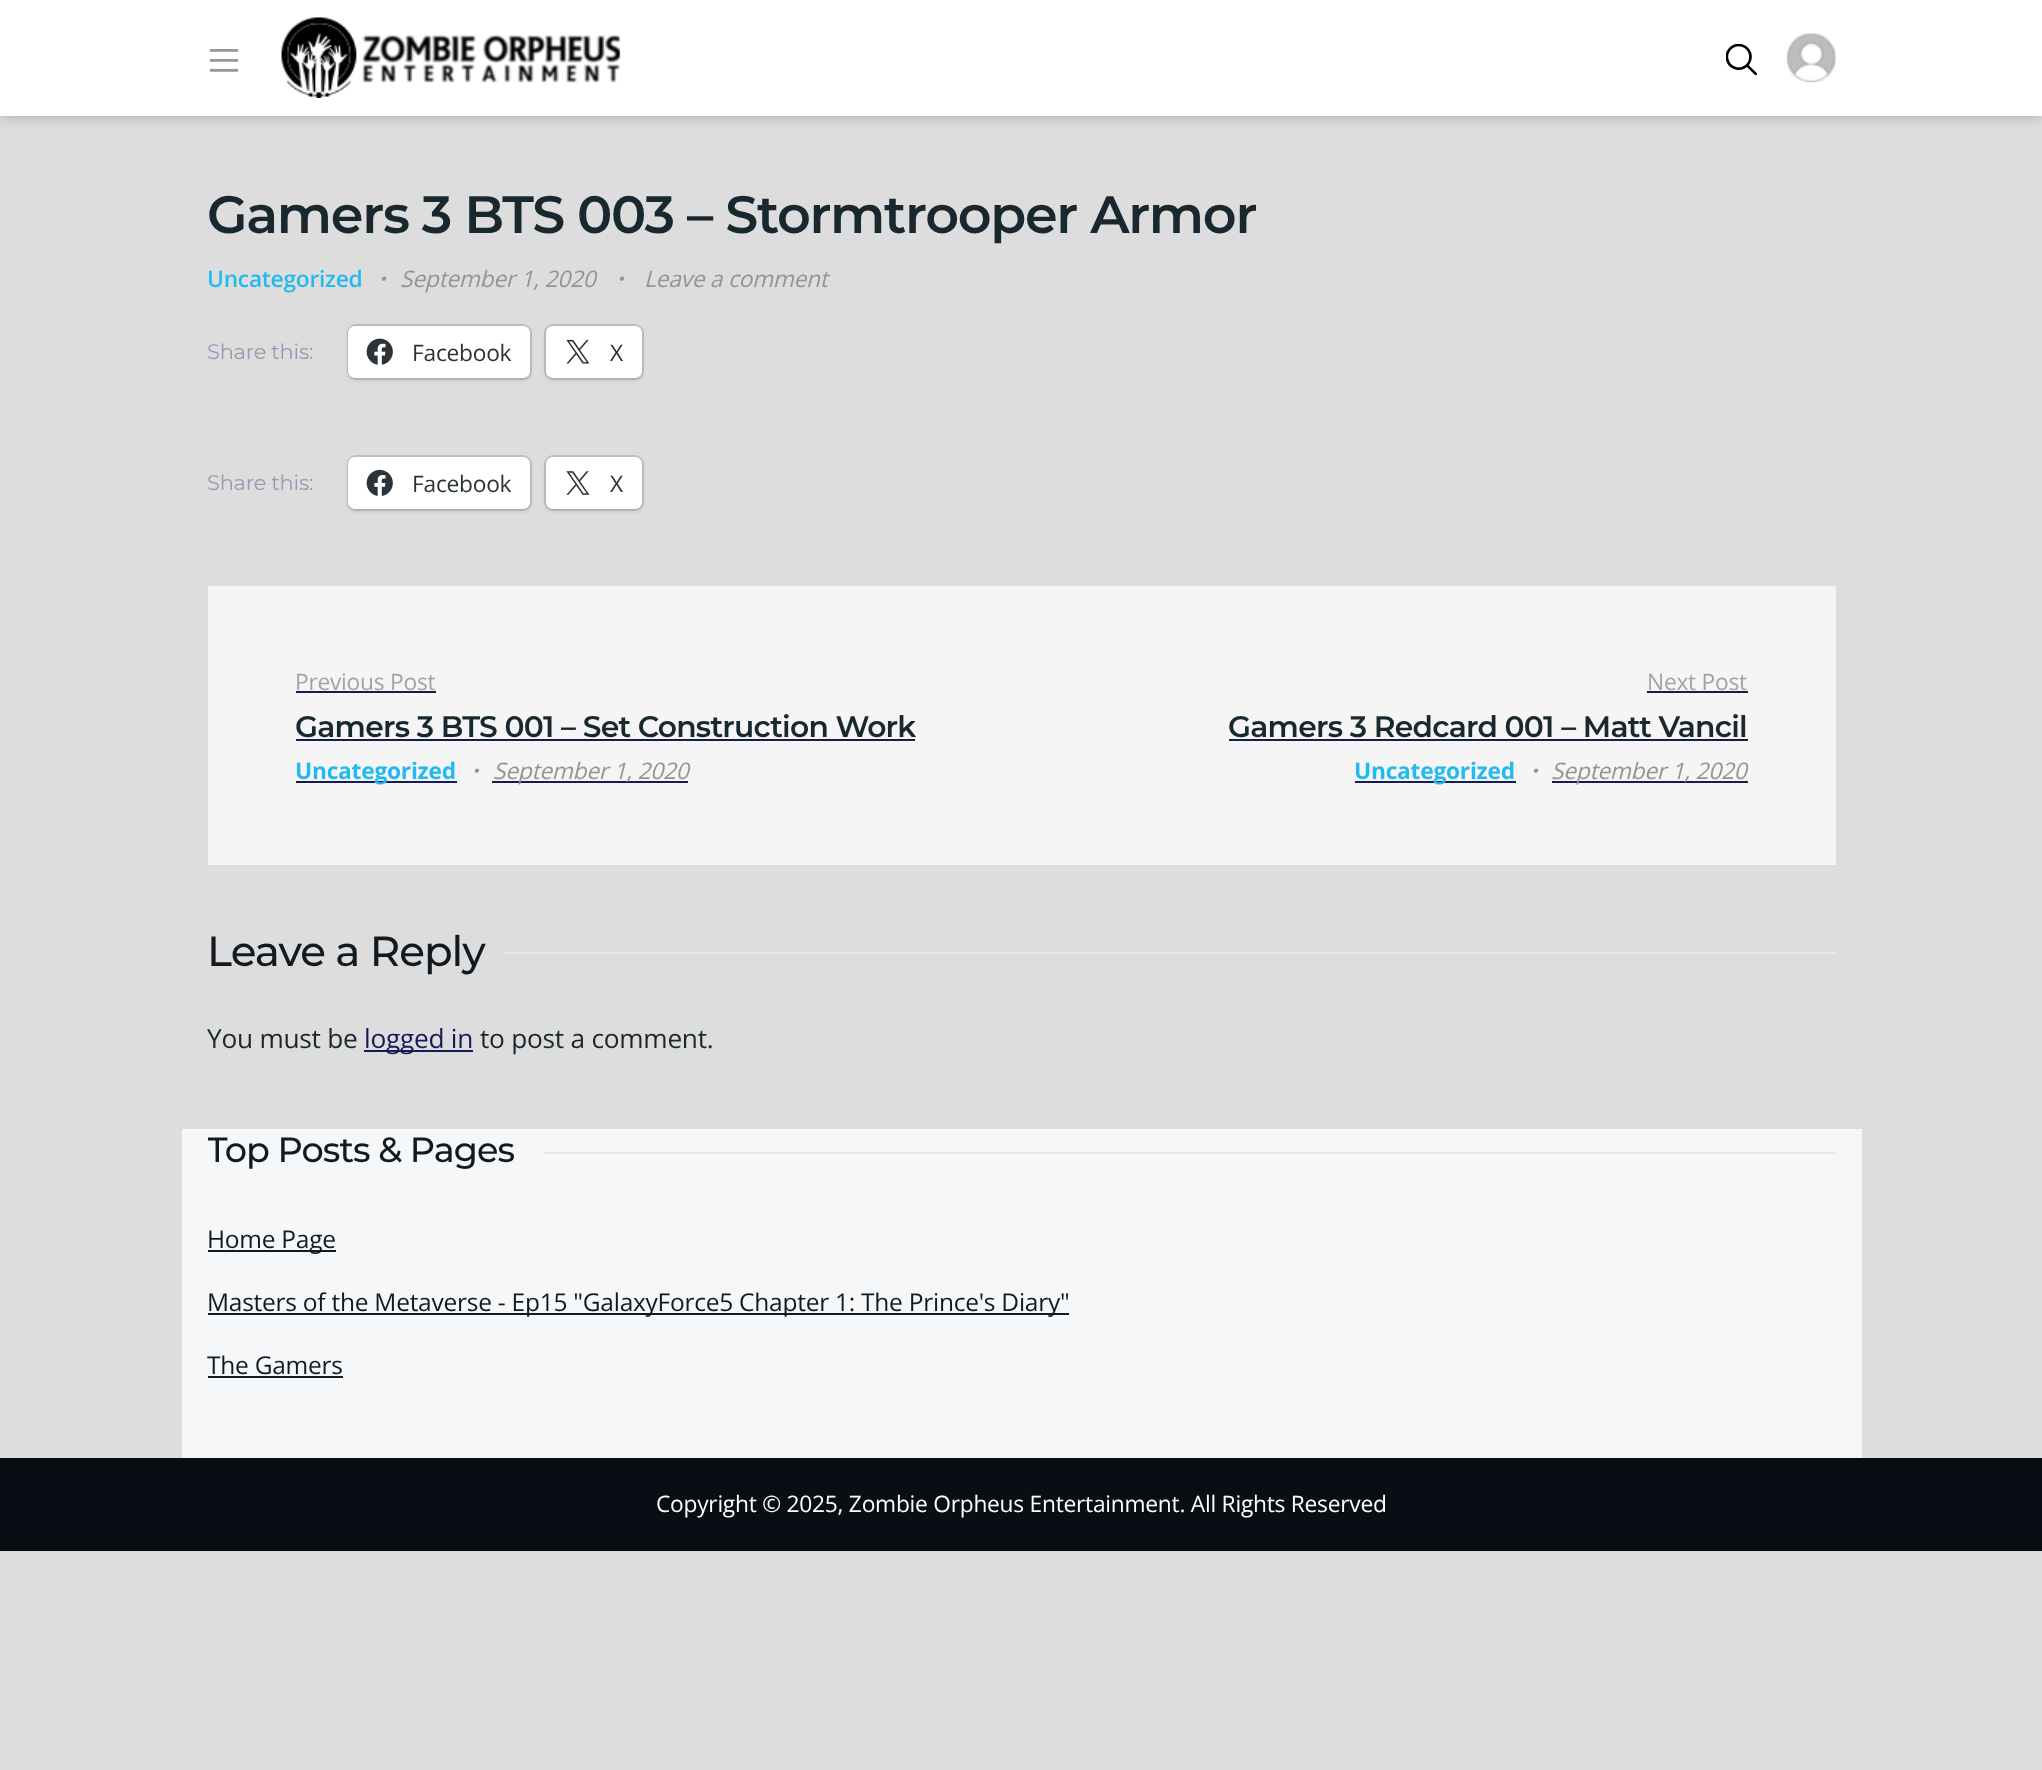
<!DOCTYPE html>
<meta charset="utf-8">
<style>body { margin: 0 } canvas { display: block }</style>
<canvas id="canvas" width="2042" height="1770"></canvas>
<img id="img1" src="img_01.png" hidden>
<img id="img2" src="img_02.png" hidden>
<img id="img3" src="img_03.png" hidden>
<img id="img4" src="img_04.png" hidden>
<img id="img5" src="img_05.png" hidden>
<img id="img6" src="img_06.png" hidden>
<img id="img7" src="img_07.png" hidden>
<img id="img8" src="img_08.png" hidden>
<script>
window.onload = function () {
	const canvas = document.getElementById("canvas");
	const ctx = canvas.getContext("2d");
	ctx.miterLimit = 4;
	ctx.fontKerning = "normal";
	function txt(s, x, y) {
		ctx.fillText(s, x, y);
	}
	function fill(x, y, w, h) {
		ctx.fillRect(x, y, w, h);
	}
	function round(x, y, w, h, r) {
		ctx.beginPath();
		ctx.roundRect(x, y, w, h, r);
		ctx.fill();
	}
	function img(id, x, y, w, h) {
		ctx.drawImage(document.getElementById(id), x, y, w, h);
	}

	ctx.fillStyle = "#DDDDDD";
	fill(0, 0, 2042, 1770);
	ctx.fillStyle = "rgba(51, 51, 51, 0.3)";
	ctx.filter = "blur(7px)";
	ctx.beginPath();
	ctx.rect(0, 0, 2042, 116);
	ctx.fill();
	ctx.filter = "none";
	ctx.fillStyle = "#FFFFFF";
	fill(0, 0, 2042, 116);
	img("img1", 210, 49, 28, 23);
	img("img2", 281, 17, 340, 81);
	img("img3", 1726, 44, 31, 31);
	img("img4", 1786, 33, 50, 50);
	ctx.beginPath();
	ctx.roundRect(348, 325, 183, 54, 8);
	ctx.strokeStyle = "#C2C2C2";
	ctx.lineWidth = 2;
	ctx.stroke();
	ctx.fillStyle = "rgba(0, 0, 0, 0.12)";
	ctx.filter = "blur(2px)";
	ctx.beginPath();
	ctx.roundRect(348, 327, 182, 53, 7);
	ctx.fill();
	ctx.filter = "none";
	ctx.fillStyle = "#FFFFFF";
	round(348, 326, 182, 52, 7);
	img("img5", 366, 338, 27, 27);
	ctx.beginPath();
	ctx.roundRect(545, 325, 98, 54, 8);
	ctx.stroke();
	ctx.fillStyle = "rgba(0, 0, 0, 0.12)";
	ctx.filter = "blur(2px)";
	ctx.beginPath();
	ctx.roundRect(546, 327, 96, 53, 7);
	ctx.fill();
	ctx.filter = "none";
	ctx.fillStyle = "#FFFFFF";
	round(546, 326, 96, 52, 7);
	img("img6", 566, 339, 24, 25);
	ctx.beginPath();
	ctx.roundRect(348, 456, 183, 54, 8);
	ctx.stroke();
	ctx.fillStyle = "rgba(0, 0, 0, 0.12)";
	ctx.filter = "blur(2px)";
	ctx.beginPath();
	ctx.roundRect(348, 459, 182, 52, 7);
	ctx.fill();
	ctx.filter = "none";
	ctx.fillStyle = "#FFFFFF";
	round(348, 457, 182, 52, 7);
	img("img7", 366, 469, 27, 27);
	ctx.beginPath();
	ctx.roundRect(545, 456, 98, 54, 8);
	ctx.stroke();
	ctx.fillStyle = "rgba(0, 0, 0, 0.12)";
	ctx.filter = "blur(2px)";
	ctx.beginPath();
	ctx.roundRect(546, 459, 96, 52, 7);
	ctx.fill();
	ctx.filter = "none";
	ctx.fillStyle = "#FFFFFF";
	round(546, 457, 96, 52, 7);
	img("img8", 566, 471, 24, 24);
	ctx.fillStyle = "#F5F5F5";
	fill(208, 586, 1628, 279);
	ctx.fillStyle = "#151B54";
	fill(296, 691, 140, 2);
	fill(296, 739, 619, 2);
	fill(296, 781, 161, 2);
	fill(492, 781, 196, 2);
	fill(1647, 691, 101, 2);
	fill(1229, 739, 519, 2);
	fill(1355, 781, 161, 2);
	fill(1552, 781, 196, 2);
	ctx.fillStyle = "#E8E8E8";
	fill(504, 952, 1332, 2);
	ctx.fillStyle = "#151B54";
	fill(364, 1050, 109, 2);
	ctx.fillStyle = "#F6F7F9";
	fill(182, 1129, 1680, 329);
	ctx.fillStyle = "#E8E8E8";
	fill(543, 1152, 1293, 2);
	ctx.fillStyle = "#121A21";
	fill(208, 1250, 128, 2);
	fill(208, 1313, 861, 2);
	fill(208, 1376, 135, 2);
	ctx.fillStyle = "#0A0D14";
	fill(0, 1458, 2042, 93);
	ctx.letterSpacing = "-1.3px";
	ctx.font = "600 52.5px Montserrat";
	ctx.fillStyle = "#19272E";
	txt("Gamers 3 BTS 003 – Stormtrooper Armor", 207, 233);
	ctx.letterSpacing = "-0.25px";
	ctx.font = "600 22.75px Open Sans";
	ctx.fillStyle = "#24BAEF";
	txt("Uncategorized", 207, 287);
	ctx.font = "italic bold 22.75px WenQuanYi Zen Hei";
	ctx.fillStyle = "#949494";
	txt("・", 370, 287);
	ctx.font = "italic 22.75px Open Sans";
	txt("September 1, 2020", 400, 287);
	ctx.font = "italic bold 22.75px WenQuanYi Zen Hei";
	txt("・", 608, 287);
	ctx.font = "italic 22.75px Open Sans";
	txt("Leave a comment", 644, 287);
	ctx.font = "100 21px Montserrat";
	ctx.fillStyle = "#949CB0";
	txt("Share this:", 207, 359);
	ctx.font = "22.75px Open Sans";
	ctx.fillStyle = "#2C3338";
	txt("Facebook", 412, 361);
	txt("X", 610, 361);
	ctx.font = "100 21px Montserrat";
	ctx.fillStyle = "#949CB0";
	txt("Share this:", 207, 490);
	ctx.font = "22.75px Open Sans";
	ctx.fillStyle = "#2C3338";
	txt("Facebook", 412, 492);
	txt("X", 610, 492);
	ctx.fillStyle = "#A3A3A3";
	txt("Previous Post", 295, 690);
	ctx.letterSpacing = "-0.75px";
	ctx.font = "600 29.75px Montserrat";
	ctx.fillStyle = "#19272E";
	txt("Gamers 3 BTS 001 – Set Construction Work", 295, 737);
	ctx.letterSpacing = "-0.25px";
	ctx.font = "bold 22.75px Open Sans";
	ctx.fillStyle = "#24BAEF";
	txt("Uncategorized", 295, 779);
	ctx.font = "italic bold 22.75px WenQuanYi Zen Hei";
	ctx.fillStyle = "#949494";
	txt("・", 463, 779);
	ctx.font = "italic 22.75px Open Sans";
	txt("September 1, 2020", 493, 779);
	ctx.font = "22.75px Open Sans";
	ctx.fillStyle = "#A3A3A3";
	txt("Next Post", 1647, 690);
	ctx.letterSpacing = "-0.75px";
	ctx.font = "600 29.75px Montserrat";
	ctx.fillStyle = "#19272E";
	txt("Gamers 3 Redcard 001 – Matt Vancil", 1228, 737);
	ctx.letterSpacing = "-0.25px";
	ctx.font = "bold 22.75px Open Sans";
	ctx.fillStyle = "#24BAEF";
	txt("Uncategorized", 1354, 779);
	ctx.font = "italic bold 22.75px WenQuanYi Zen Hei";
	ctx.fillStyle = "#949494";
	txt("・", 1522, 779);
	ctx.font = "italic 22.75px Open Sans";
	txt("September 1, 2020", 1551, 779);
	ctx.letterSpacing = "-1px";
	ctx.font = "500 42px Montserrat";
	ctx.fillStyle = "#121A21";
	txt("Leave a Reply", 207, 966);
	ctx.letterSpacing = "-0.25px";
	ctx.font = "26.25px Open Sans";
	ctx.fillStyle = "#19272E";
	txt("You must be", 207, 1048);
	ctx.fillStyle = "#151B54";
	txt("logged in", 364, 1048);
	ctx.fillStyle = "#19272E";
	txt("to post a comment.", 480, 1048);
	ctx.save();
	ctx.beginPath();
	ctx.rect(208, 1129, 1628, 44);
	ctx.clip();
	ctx.letterSpacing = "-0.9px";
	ctx.font = "500 35px Montserrat";
	ctx.fillStyle = "#121A21";
	txt("Top Posts & Pages", 207, 1162);
	ctx.restore();
	ctx.font = "24.5px Open Sans";
	ctx.fillStyle = "#121A21";
	txt("Home Page", 207, 1248);
	txt("Masters of the Metaverse - Ep15 \"GalaxyForce5 Chapter 1: The Prince's Diary\"", 207, 1311);
	txt("The Gamers", 207, 1374);
	ctx.font = "22.75px Open Sans";
	ctx.fillStyle = "#FFFFFF";
	txt("Copyright © 2025, Zombie Orpheus Entertainment. All Rights Reserved", 656, 1512);
};
</script>
